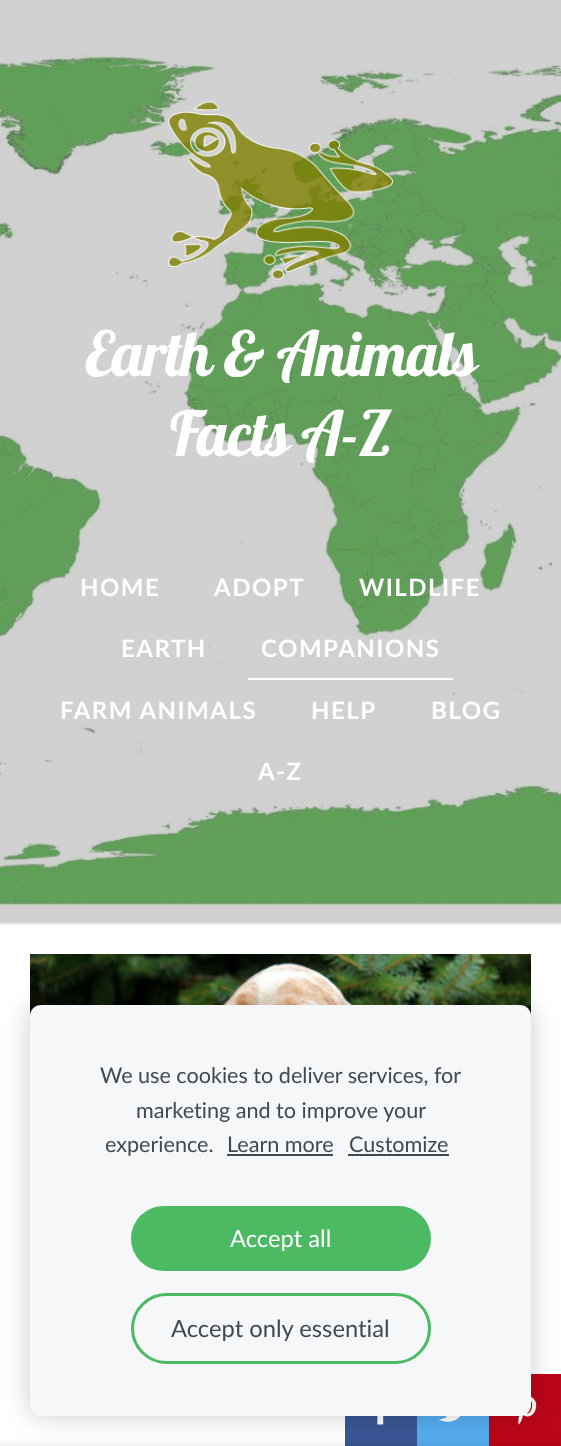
<!DOCTYPE html>
<meta charset="utf-8">
<style>body { margin: 0 } canvas { display: block }</style>
<canvas id="canvas" width="561" height="1446"></canvas>
<img id="img1" src="img_01.png" hidden>
<img id="img2" src="img_02.png" hidden>
<img id="img3" src="img_03.png" hidden>
<img id="img4" src="img_04.png" hidden>
<img id="img5" src="img_05.png" hidden>
<img id="img6" src="img_06.png" hidden>
<script>
window.onload = function () {
	const canvas = document.getElementById("canvas");
	const ctx = canvas.getContext("2d");
	ctx.miterLimit = 4;
	ctx.fontKerning = "normal";
	function txt(s, x, y) {
		ctx.fillText(s, x, y);
	}
	function fill(x, y, w, h) {
		ctx.fillRect(x, y, w, h);
	}
	function round(x, y, w, h, r) {
		ctx.beginPath();
		ctx.roundRect(x, y, w, h, r);
		ctx.fill();
	}
	function img(id, x, y, w, h) {
		ctx.drawImage(document.getElementById(id), x, y, w, h);
	}

	ctx.fillStyle = "#FFFFFF";
	fill(0, 0, 561, 1446);
	ctx.fillStyle = "#D1D1D1";
	fill(0, 0, 561, 923);
	ctx.fillStyle = "#EEEEEE";
	fill(0, 923, 561, 2);
	img("img1", 0, 53, 561, 860);
	img("img2", 168, 101, 225, 179);
	ctx.fillStyle = "#FFFFFF";
	fill(248, 678, 205, 2);
	img("img3", 30, 954, 501, 62);
	ctx.fillStyle = "#3A5795";
	fill(345, 1416, 72, 30);
	ctx.fillStyle = "#55ACEE";
	fill(417, 1416, 72, 30);
	ctx.fillStyle = "#BC0618";
	fill(489, 1374, 72, 72);
	ctx.fillStyle = "rgba(0, 0, 0, 0.1)";
	ctx.filter = "blur(4px)";
	ctx.beginPath();
	ctx.rect(-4, 1445, 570, 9);
	ctx.fill();
	ctx.filter = "none";
	img("img4", 377, 1416, 7, 9);
	img("img5", 438, 1416, 23, 6);
	img("img6", 518, 1396, 19, 29);
	ctx.fillStyle = "rgba(0, 0, 0, 0.2)";
	ctx.filter = "blur(13px)";
	ctx.beginPath();
	ctx.roundRect(30, 1005, 501, 411, 11);
	ctx.fill();
	ctx.filter = "none";
	ctx.fillStyle = "#F6F7F9";
	round(30, 1005, 501, 411, 11);
	ctx.fillStyle = "#3F4954";
	fill(227, 1154, 106, 2);
	fill(348, 1154, 101, 2);
	ctx.fillStyle = "#4CB963";
	round(131, 1206, 300, 65, 32.5);
	ctx.beginPath();
	ctx.roundRect(132.5, 1294.5, 297, 68, 34);
	ctx.strokeStyle = "#4CB963";
	ctx.lineWidth = 3;
	ctx.stroke();
	ctx.letterSpacing = "-1.25px";
	ctx.font = "62px Lobster";
	ctx.fillStyle = "#FFFFFF";
	txt("Earth & Animals", 85, 376);
	txt("Facts A-Z", 170, 456);
	ctx.letterSpacing = "1.5px";
	ctx.font = "bold 24px Lato";
	txt("HOME", 80, 596);
	txt("ADOPT", 214, 596);
	txt("WILDLIFE", 359, 596);
	txt("EARTH", 121, 657);
	txt("COMPANIONS", 261, 657);
	txt("FARM ANIMALS", 60, 719);
	txt("HELP", 311, 719);
	txt("BLOG", 431, 719);
	txt("A-Z", 258, 780);
	ctx.letterSpacing = "0px";
	ctx.font = "21.6px Lato";
	ctx.fillStyle = "#3F4954";
	txt("We use cookies to deliver services, for", 100, 1083);
	txt("marketing and to improve your", 136, 1118);
	txt("experience.", 105, 1152);
	txt("Learn more", 227, 1152);
	txt("Customize", 349, 1152);
	ctx.font = "23.75px Lato";
	ctx.fillStyle = "#FFFFFF";
	txt("Accept all", 230, 1247);
	ctx.fillStyle = "#3F4954";
	txt("Accept only essential", 171, 1337);
};
</script>
